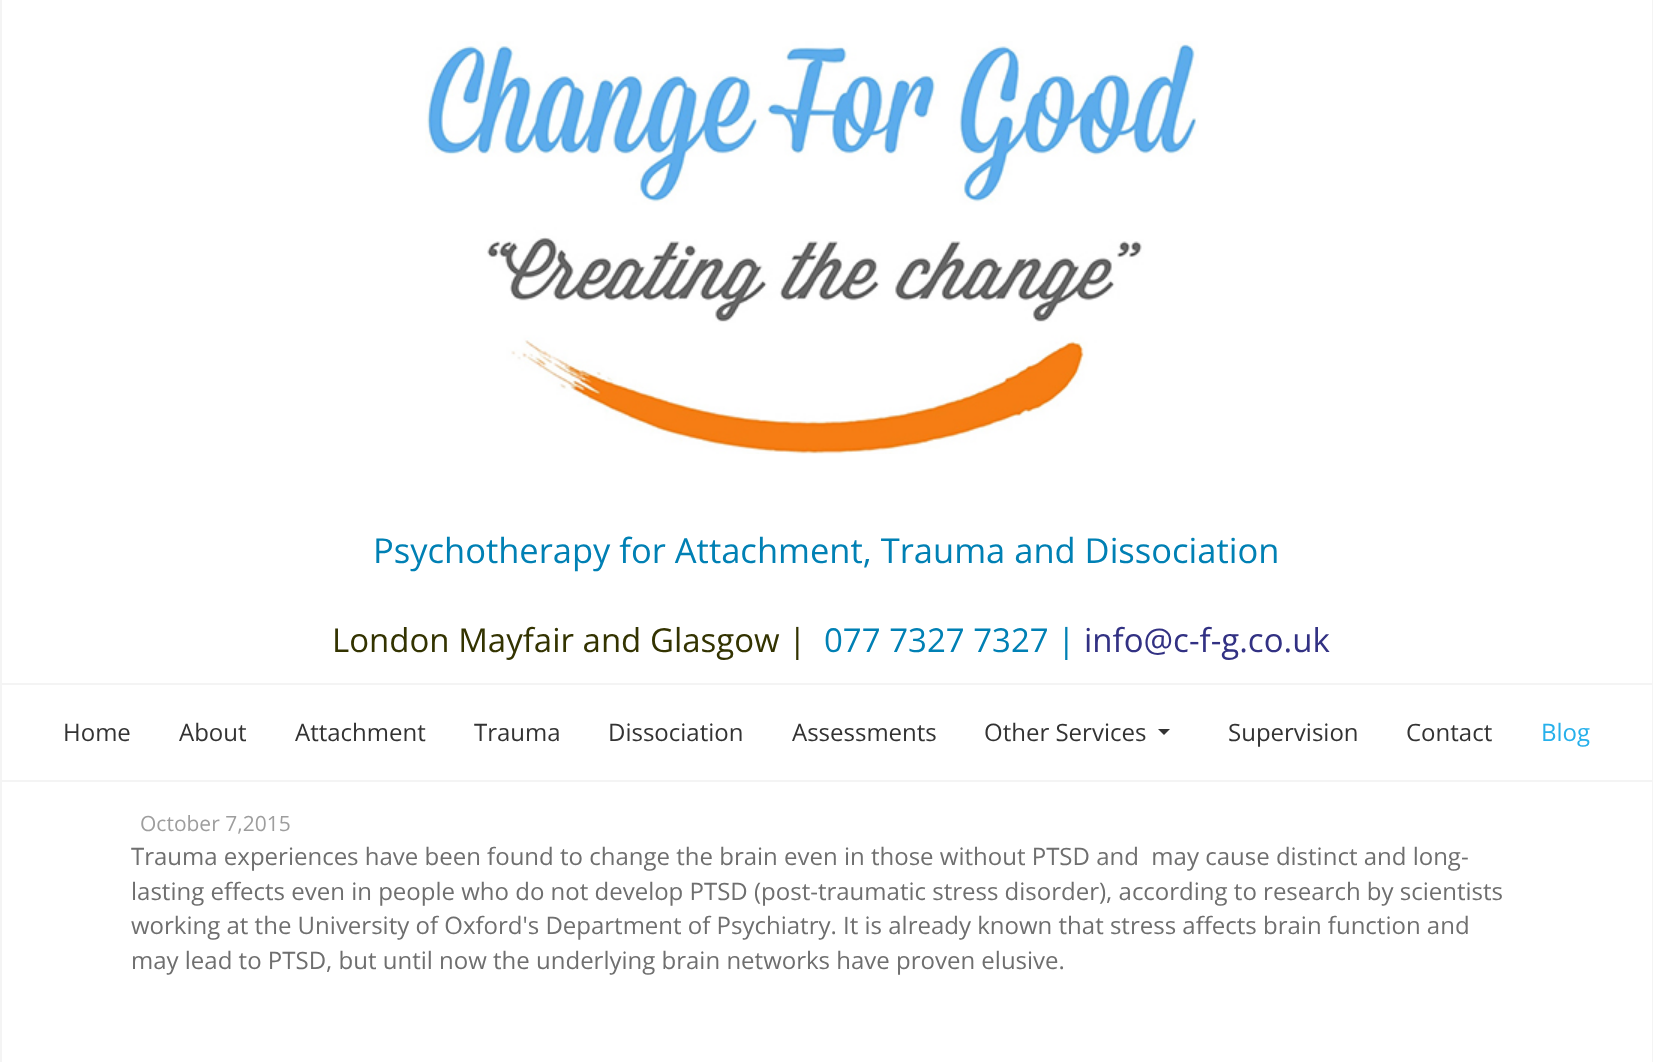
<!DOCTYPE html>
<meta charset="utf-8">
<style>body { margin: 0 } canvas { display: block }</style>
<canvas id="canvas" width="1653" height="1062"></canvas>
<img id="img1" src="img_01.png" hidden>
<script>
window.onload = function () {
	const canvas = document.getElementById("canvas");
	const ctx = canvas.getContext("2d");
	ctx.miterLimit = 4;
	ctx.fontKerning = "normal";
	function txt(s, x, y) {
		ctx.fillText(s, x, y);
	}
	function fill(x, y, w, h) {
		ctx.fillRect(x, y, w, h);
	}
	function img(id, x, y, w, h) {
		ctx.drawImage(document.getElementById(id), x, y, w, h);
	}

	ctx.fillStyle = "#FFFFFF";
	fill(0, 0, 1653, 1062);
	ctx.fillStyle = "#F4F4F4";
	fill(1652, 0, 1, 1062);
	fill(0, 0, 2, 1062);
	img("img1", 425, 41, 774, 413);
	fill(2, 683, 1650, 2);
	fill(2, 780, 1650, 2);
	ctx.fillStyle = "#333333";
	ctx.beginPath();
	ctx.moveTo(1158, 729);
	ctx.lineTo(1170, 729);
	ctx.lineTo(1164, 735);
	ctx.closePath();
	ctx.fill();
	ctx.font = "34.5px Open Sans";
	ctx.fillStyle = "#0080B4";
	txt("Psychotherapy for Attachment, Trauma and Dissociation", 373, 563);
	ctx.font = "33px Open Sans";
	ctx.fillStyle = "#333300";
	txt("London Mayfair and Glasgow |", 332, 652);
	ctx.fillStyle = "#0080B4";
	txt("077 7327 7327 |", 824, 652);
	ctx.fillStyle = "#323183";
	txt("info@c-f-g.co.uk", 1084, 652);
	ctx.font = "24px Open Sans";
	ctx.fillStyle = "#333333";
	txt("Home", 63, 741);
	txt("About", 179, 741);
	txt("Attachment", 295, 741);
	txt("Trauma", 474, 741);
	txt("Dissociation", 608, 741);
	txt("Assessments", 792, 741);
	txt("Other Services", 984, 741);
	txt("Supervision", 1228, 741);
	txt("Contact", 1406, 741);
	ctx.fillStyle = "#26B0EB";
	txt("Blog", 1541, 741);
	ctx.font = "21px Open Sans";
	ctx.fillStyle = "#9E9E9E";
	txt("October 7,2015", 140, 831);
	ctx.font = "24px Open Sans";
	ctx.fillStyle = "#6F6F6F";
	txt("Trauma experiences have been found to change the brain even in those without PTSD and  may cause distinct and long-", 131, 865);
	txt("lasting effects even in people who do not develop PTSD (post-traumatic stress disorder), according to research by scientists", 131, 900);
	txt("working at the University of Oxford's Department of Psychiatry. It is already known that stress affects brain function and", 131, 934);
	txt("may lead to PTSD, but until now the underlying brain networks have proven elusive.", 131, 969);
};
</script>
